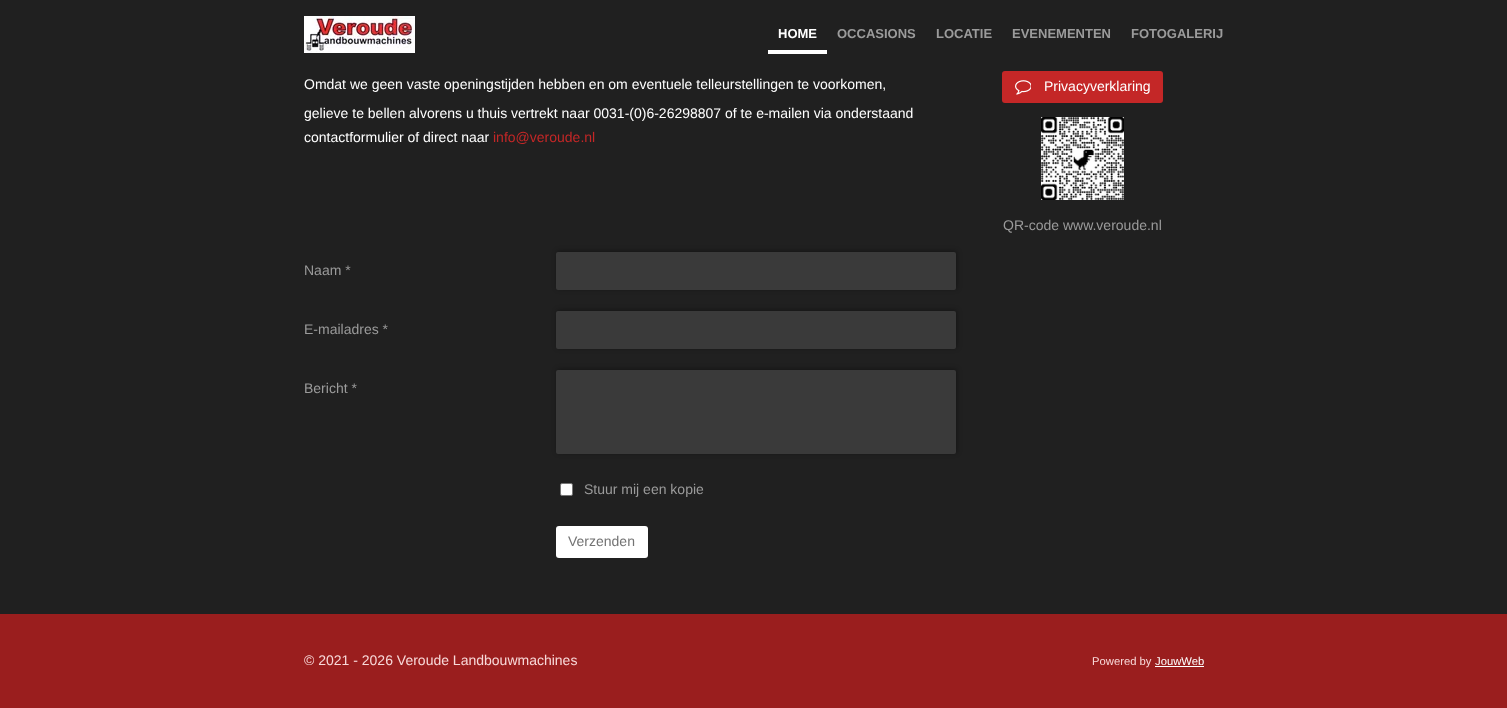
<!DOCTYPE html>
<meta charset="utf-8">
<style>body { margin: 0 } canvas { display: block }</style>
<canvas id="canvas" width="1507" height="708"></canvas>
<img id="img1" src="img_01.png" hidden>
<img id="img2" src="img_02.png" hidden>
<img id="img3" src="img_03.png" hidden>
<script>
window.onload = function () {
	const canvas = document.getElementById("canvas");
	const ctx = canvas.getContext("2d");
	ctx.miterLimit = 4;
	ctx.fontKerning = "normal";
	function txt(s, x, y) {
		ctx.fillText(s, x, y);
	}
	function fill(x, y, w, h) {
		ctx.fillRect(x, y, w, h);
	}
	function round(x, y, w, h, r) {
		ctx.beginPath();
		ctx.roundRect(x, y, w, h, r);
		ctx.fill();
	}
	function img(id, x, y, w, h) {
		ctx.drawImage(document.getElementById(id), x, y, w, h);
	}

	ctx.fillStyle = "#202020";
	fill(0, 0, 1507, 708);
	img("img1", 304, 16, 111, 37);
	ctx.fillStyle = "#FFFFFF";
	fill(768, 50, 59, 4);
	ctx.fillStyle = "#C42727";
	round(1002, 71, 161, 32, 3);
	img("img2", 1015, 80, 16, 15);
	img("img3", 1041, 117, 83, 83);
	ctx.fillStyle = "rgba(0, 0, 0, 0.35)";
	ctx.filter = "blur(2.5px)";
	ctx.beginPath();
	ctx.roundRect(557, 251, 400, 38, 2);
	ctx.fill();
	ctx.filter = "none";
	ctx.fillStyle = "#3A3A3A";
	round(556, 252, 400, 38, 2);
	ctx.fillStyle = "rgba(0, 0, 0, 0.35)";
	ctx.filter = "blur(2.5px)";
	ctx.beginPath();
	ctx.roundRect(557, 310, 400, 38, 2);
	ctx.fill();
	ctx.filter = "none";
	ctx.fillStyle = "#3A3A3A";
	round(556, 311, 400, 38, 2);
	ctx.fillStyle = "rgba(0, 0, 0, 0.35)";
	ctx.filter = "blur(2.5px)";
	ctx.beginPath();
	ctx.roundRect(557, 369, 400, 84, 2);
	ctx.fill();
	ctx.filter = "none";
	ctx.fillStyle = "#3A3A3A";
	round(556, 370, 400, 84, 2);
	ctx.fillStyle = "#FFFFFF";
	ctx.beginPath();
	ctx.roundRect(560.5, 483.5, 12, 12, 1.5);
	ctx.fill();
	ctx.strokeStyle = "#767676";
	ctx.stroke();
	round(556, 526, 92, 32, 3);
	ctx.fillStyle = "#9A1E1E";
	fill(0, 614, 1507, 94);
	ctx.fillStyle = "#FFFFFF";
	fill(1155, 666, 49, 1);
	ctx.font = "bold 13px Liberation Sans";
	txt("HOME", 778, 38);
	ctx.fillStyle = "#9B9B9B";
	txt("OCCASIONS", 837, 38);
	txt("LOCATIE", 936, 38);
	txt("EVENEMENTEN", 1012, 38);
	txt("FOTOGALERIJ", 1131, 38);
	ctx.font = "14px Liberation Sans";
	ctx.fillStyle = "#FFFFFF";
	txt("Omdat we geen vaste openingstijden hebben en om eventuele telleurstellingen te voorkomen,", 304, 89);
	txt("gelieve te bellen alvorens u thuis vertrekt naar 0031-(0)6-26298807 of te e-mailen via onderstaand", 304, 118);
	txt("contactformulier of direct naar", 304, 142);
	ctx.fillStyle = "#C42727";
	txt("info@veroude.nl", 493, 142);
	ctx.fillStyle = "#FFFFFF";
	txt("Privacyverklaring", 1044, 91);
	ctx.fillStyle = "#9B9B9B";
	txt("QR-code www.veroude.nl", 1003, 230);
	txt("Naam *", 304, 275);
	txt("E-mailadres *", 304, 334);
	txt("Bericht *", 304, 393);
	txt("Stuur mij een kopie", 584, 494);
	ctx.fillStyle = "#737373";
	txt("Verzenden", 568, 546);
	ctx.fillStyle = "#F8D9D9";
	txt("© 2021 - 2026 Veroude Landbouwmachines", 304, 665);
	ctx.font = "11.25px Liberation Sans";
	txt("Powered by", 1092, 665);
	ctx.fillStyle = "#FFFFFF";
	txt("JouwWeb", 1155, 665);
};
</script>
